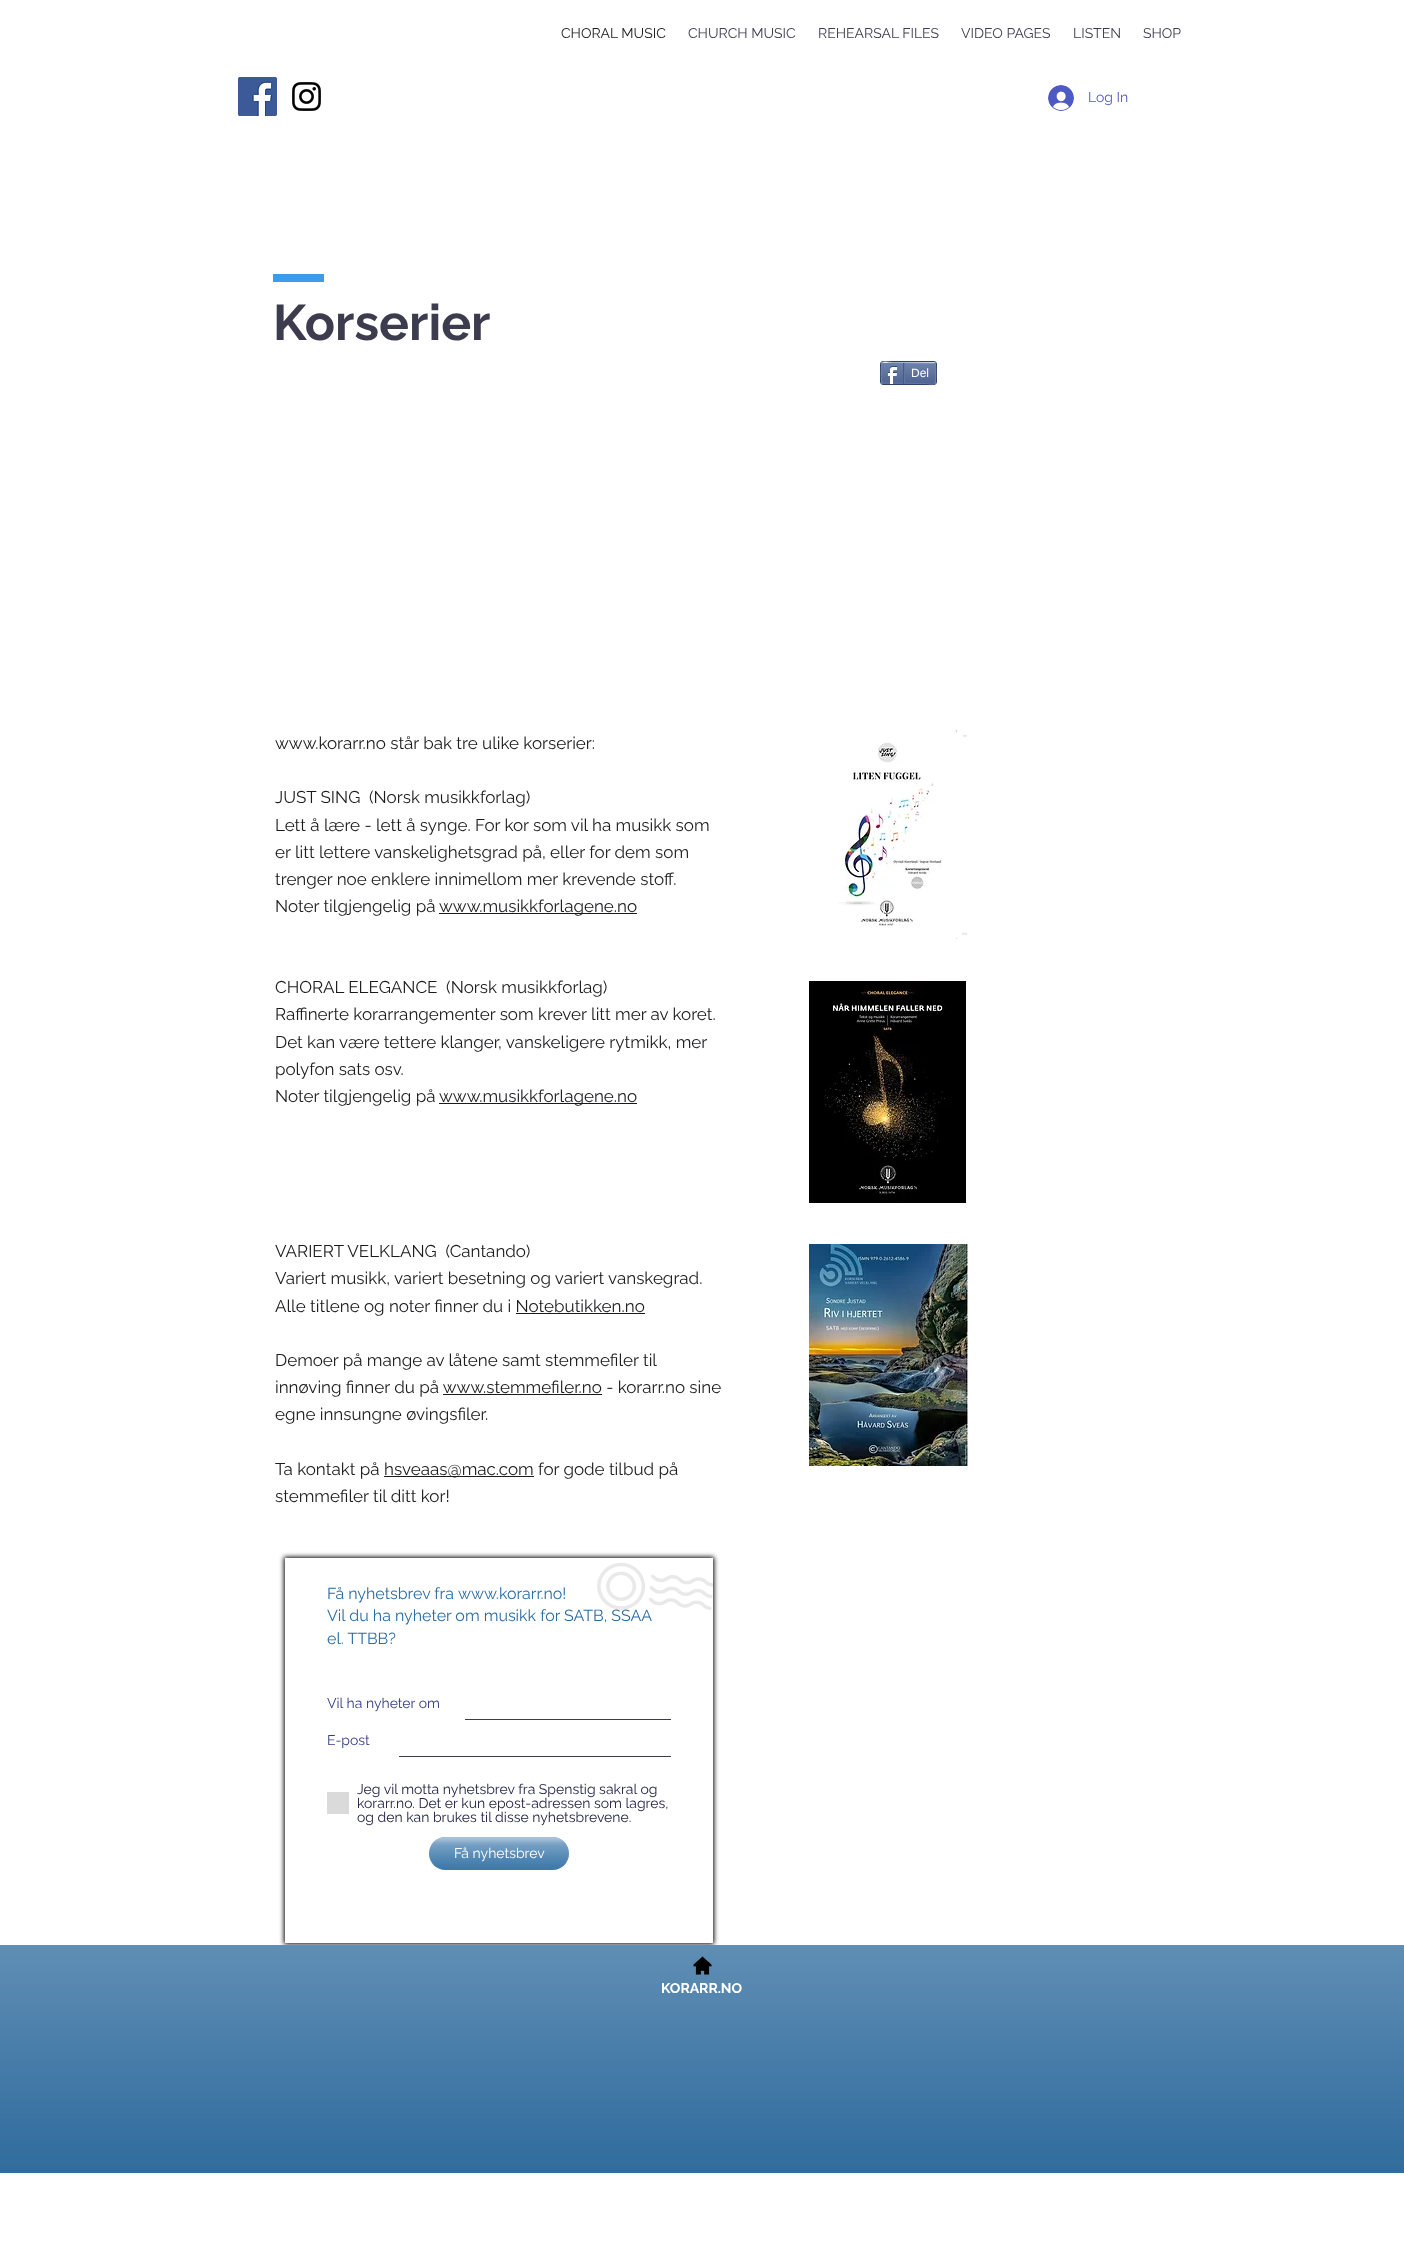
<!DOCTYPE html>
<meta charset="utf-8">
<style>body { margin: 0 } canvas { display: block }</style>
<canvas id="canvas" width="1404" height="2255"></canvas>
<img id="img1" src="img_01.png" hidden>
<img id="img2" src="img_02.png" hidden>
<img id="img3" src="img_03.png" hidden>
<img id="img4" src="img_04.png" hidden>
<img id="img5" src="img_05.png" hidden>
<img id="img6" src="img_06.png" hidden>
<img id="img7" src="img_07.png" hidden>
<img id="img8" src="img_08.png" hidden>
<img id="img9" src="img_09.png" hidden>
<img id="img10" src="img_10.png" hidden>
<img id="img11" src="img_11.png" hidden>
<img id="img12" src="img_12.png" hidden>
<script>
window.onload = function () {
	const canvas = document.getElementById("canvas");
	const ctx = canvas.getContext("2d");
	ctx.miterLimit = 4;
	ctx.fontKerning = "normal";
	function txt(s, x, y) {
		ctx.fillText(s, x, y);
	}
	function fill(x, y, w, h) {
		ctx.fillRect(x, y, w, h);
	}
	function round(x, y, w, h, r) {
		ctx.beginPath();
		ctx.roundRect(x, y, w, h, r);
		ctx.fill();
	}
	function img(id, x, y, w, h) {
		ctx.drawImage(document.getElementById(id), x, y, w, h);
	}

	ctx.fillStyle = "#FFFFFF";
	fill(0, 0, 1404, 2255);
	img("img1", 238, 77, 39, 39);
	img("img2", 292, 82, 29, 29);
	img("img3", 1048, 85, 26, 26);
	ctx.fillStyle = "#3D9BE9";
	fill(273, 274, 51, 8);
	ctx.beginPath();
	ctx.roundRect(880.5, 361.5, 56, 23, 2.5);
	ctx.strokeStyle = "#2D4565";
	ctx.stroke();
	img("img4", 881, 363, 55, 21);
	ctx.beginPath();
	ctx.moveTo(882, 363);
	ctx.bezierCurveTo(884, 360.5, 888.5, 362.5, 891.5, 362.5);
	ctx.lineTo(935, 363);
	ctx.strokeStyle = "#9AABC6";
	ctx.stroke();
	ctx.beginPath();
	ctx.moveTo(935, 363);
	ctx.bezierCurveTo(936, 363.5, 936, 382.5, 935, 383);
	ctx.strokeStyle = "#6F83AD";
	ctx.stroke();
	ctx.beginPath();
	ctx.moveTo(935, 383);
	ctx.bezierCurveTo(933, 385.5, 928.5, 383.5, 925.5, 383.5);
	ctx.lineTo(882, 383);
	ctx.strokeStyle = "#6176A3";
	ctx.stroke();
	ctx.beginPath();
	ctx.moveTo(882, 383);
	ctx.bezierCurveTo(881, 382.5, 881, 363.5, 882, 363);
	ctx.strokeStyle = "#6F83AD";
	ctx.stroke();
	img("img5", 887, 366, 10, 18);
	ctx.fillStyle = "#425E85";
	fill(903, 363, 1, 21);
	ctx.fillStyle = "#6176A3";
	fill(904, 363, 1, 20);
	ctx.fillStyle = "#1B1B1E";
	fill(439, 913, 198, 1);
	img("img6", 838, 730, 129, 209);
	fill(439, 1103, 198, 1);
	img("img7", 809, 981, 157, 222);
	fill(516, 1313, 129, 1);
	fill(443, 1394, 159, 1);
	fill(384, 1476, 150, 1);
	img("img8", 809, 1244, 159, 222);
	ctx.save();
	ctx.beginPath();
	ctx.moveTo(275, 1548);
	ctx.lineTo(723, 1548);
	ctx.lineTo(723, 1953);
	ctx.lineTo(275, 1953);
	ctx.closePath();
	ctx.moveTo(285, 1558);
	ctx.lineTo(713, 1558);
	ctx.lineTo(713, 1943);
	ctx.lineTo(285, 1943);
	ctx.closePath();
	ctx.clip("evenodd");
	ctx.fillStyle = "#000000";
	ctx.filter = "blur(2.5px)";
	ctx.beginPath();
	ctx.rect(284, 1557, 430, 387);
	ctx.fill();
	ctx.filter = "none";
	ctx.restore();
	img("img9", 597, 1562, 116, 48);
	ctx.fillStyle = "#3C3C4E";
	fill(465, 1719, 206, 1);
	fill(399, 1756, 272, 1);
	ctx.fillStyle = "#DADADA";
	fill(327, 1792, 22, 22);
	ctx.fillStyle = "#2B6CA3";
	round(429, 1837, 140, 33, 16.5);
	img("img10", 429, 1837, 140, 33);
	ctx.fillStyle = "#29679B";
	fill(0, 1945, 1404, 228);
	img("img11", 0, 1945, 1404, 228);
	img("img12", 693, 1956, 19, 19);
	ctx.font = "14px Raleway";
	ctx.fillStyle = "#1B1B1E";
	txt("CHORAL MUSIC", 561, 38);
	ctx.fillStyle = "#3C3C4E";
	txt("CHURCH MUSIC", 688, 38);
	txt("REHEARSAL FILES", 818, 38);
	txt("VIDEO PAGES", 961, 38);
	txt("LISTEN", 1073, 38);
	txt("SHOP", 1143, 38);
	ctx.fillStyle = "#4E5AC3";
	txt("Log In", 1088, 102);
	ctx.font = "bold 50px Raleway";
	ctx.fillStyle = "#3C3C4E";
	txt("Korserier", 273, 340);
	ctx.font = "12px Liberation Sans";
	ctx.fillStyle = "#FFFFFF";
	txt("Del", 911, 377);
	ctx.font = "17px Raleway";
	ctx.fillStyle = "#1B1B1E";
	txt("www.korarr.no står bak tre ulike korserier:", 275, 749);
	txt("JUST SING  (Norsk musikkforlag)", 275, 803);
	txt("Lett å lære - lett å synge. For kor som vil ha musikk som", 275, 831);
	txt("er litt lettere vanskelighetsgrad på, eller for dem som", 275, 858);
	txt("trenger noe enklere innimellom mer krevende stoff.", 275, 885);
	txt("Noter tilgjengelig på", 275, 912);
	txt("www.musikkforlagene.no", 439, 912);
	txt("CHORAL ELEGANCE  (Norsk musikkforlag)", 275, 993);
	txt("Raffinerte korarrangementer som krever litt mer av koret.", 275, 1020);
	txt("Det kan være tettere klanger, vanskeligere rytmikk, mer", 275, 1048);
	txt("polyfon sats osv.", 275, 1075);
	txt("Noter tilgjengelig på", 275, 1102);
	txt("www.musikkforlagene.no", 439, 1102);
	txt("VARIERT VELKLANG  (Cantando)", 275, 1257);
	txt("Variert musikk, variert besetning og variert vanskegrad.", 275, 1284);
	txt("Alle titlene og noter finner du i Notebutikken.no", 275, 1312);
	txt("Demoer på mange av låtene samt stemmefiler til", 275, 1366);
	txt("innøving finner du på www.stemmefiler.no - korarr.no sine", 275, 1393);
	txt("egne innsungne øvingsfiler.", 275, 1420);
	txt("Ta kontakt på", 275, 1475);
	txt("hsveaas@mac.com for gode tilbud på", 384, 1475);
	txt("stemmefiler til ditt kor!", 275, 1502);
	ctx.font = "16px Raleway";
	ctx.fillStyle = "#2B6CA3";
	txt("Få nyhetsbrev fra", 327, 1599);
	txt("www.korarr.no!", 458, 1599);
	txt("Vil du ha nyheter om musikk for SATB, SSAA", 327, 1621);
	txt("el. TTBB?", 327, 1644);
	ctx.font = "14px Raleway";
	ctx.fillStyle = "#343C82";
	txt("Vil ha nyheter om", 327, 1708);
	txt("E-post", 327, 1745);
	ctx.fillStyle = "#1A1E41";
	txt("Jeg vil motta nyhetsbrev fra Spenstig sakral og", 357, 1794);
	txt("korarr.no. Det er kun epost-adressen som lagres,", 357, 1808);
	txt("og den kan brukes til disse nyhetsbrevene.", 357, 1822);
	ctx.fillStyle = "#FFFFFF";
	txt("Få nyhetsbrev", 454, 1858);
	ctx.font = "bold 14px Raleway";
	txt("KORARR.NO", 661, 1993);
};
</script>
